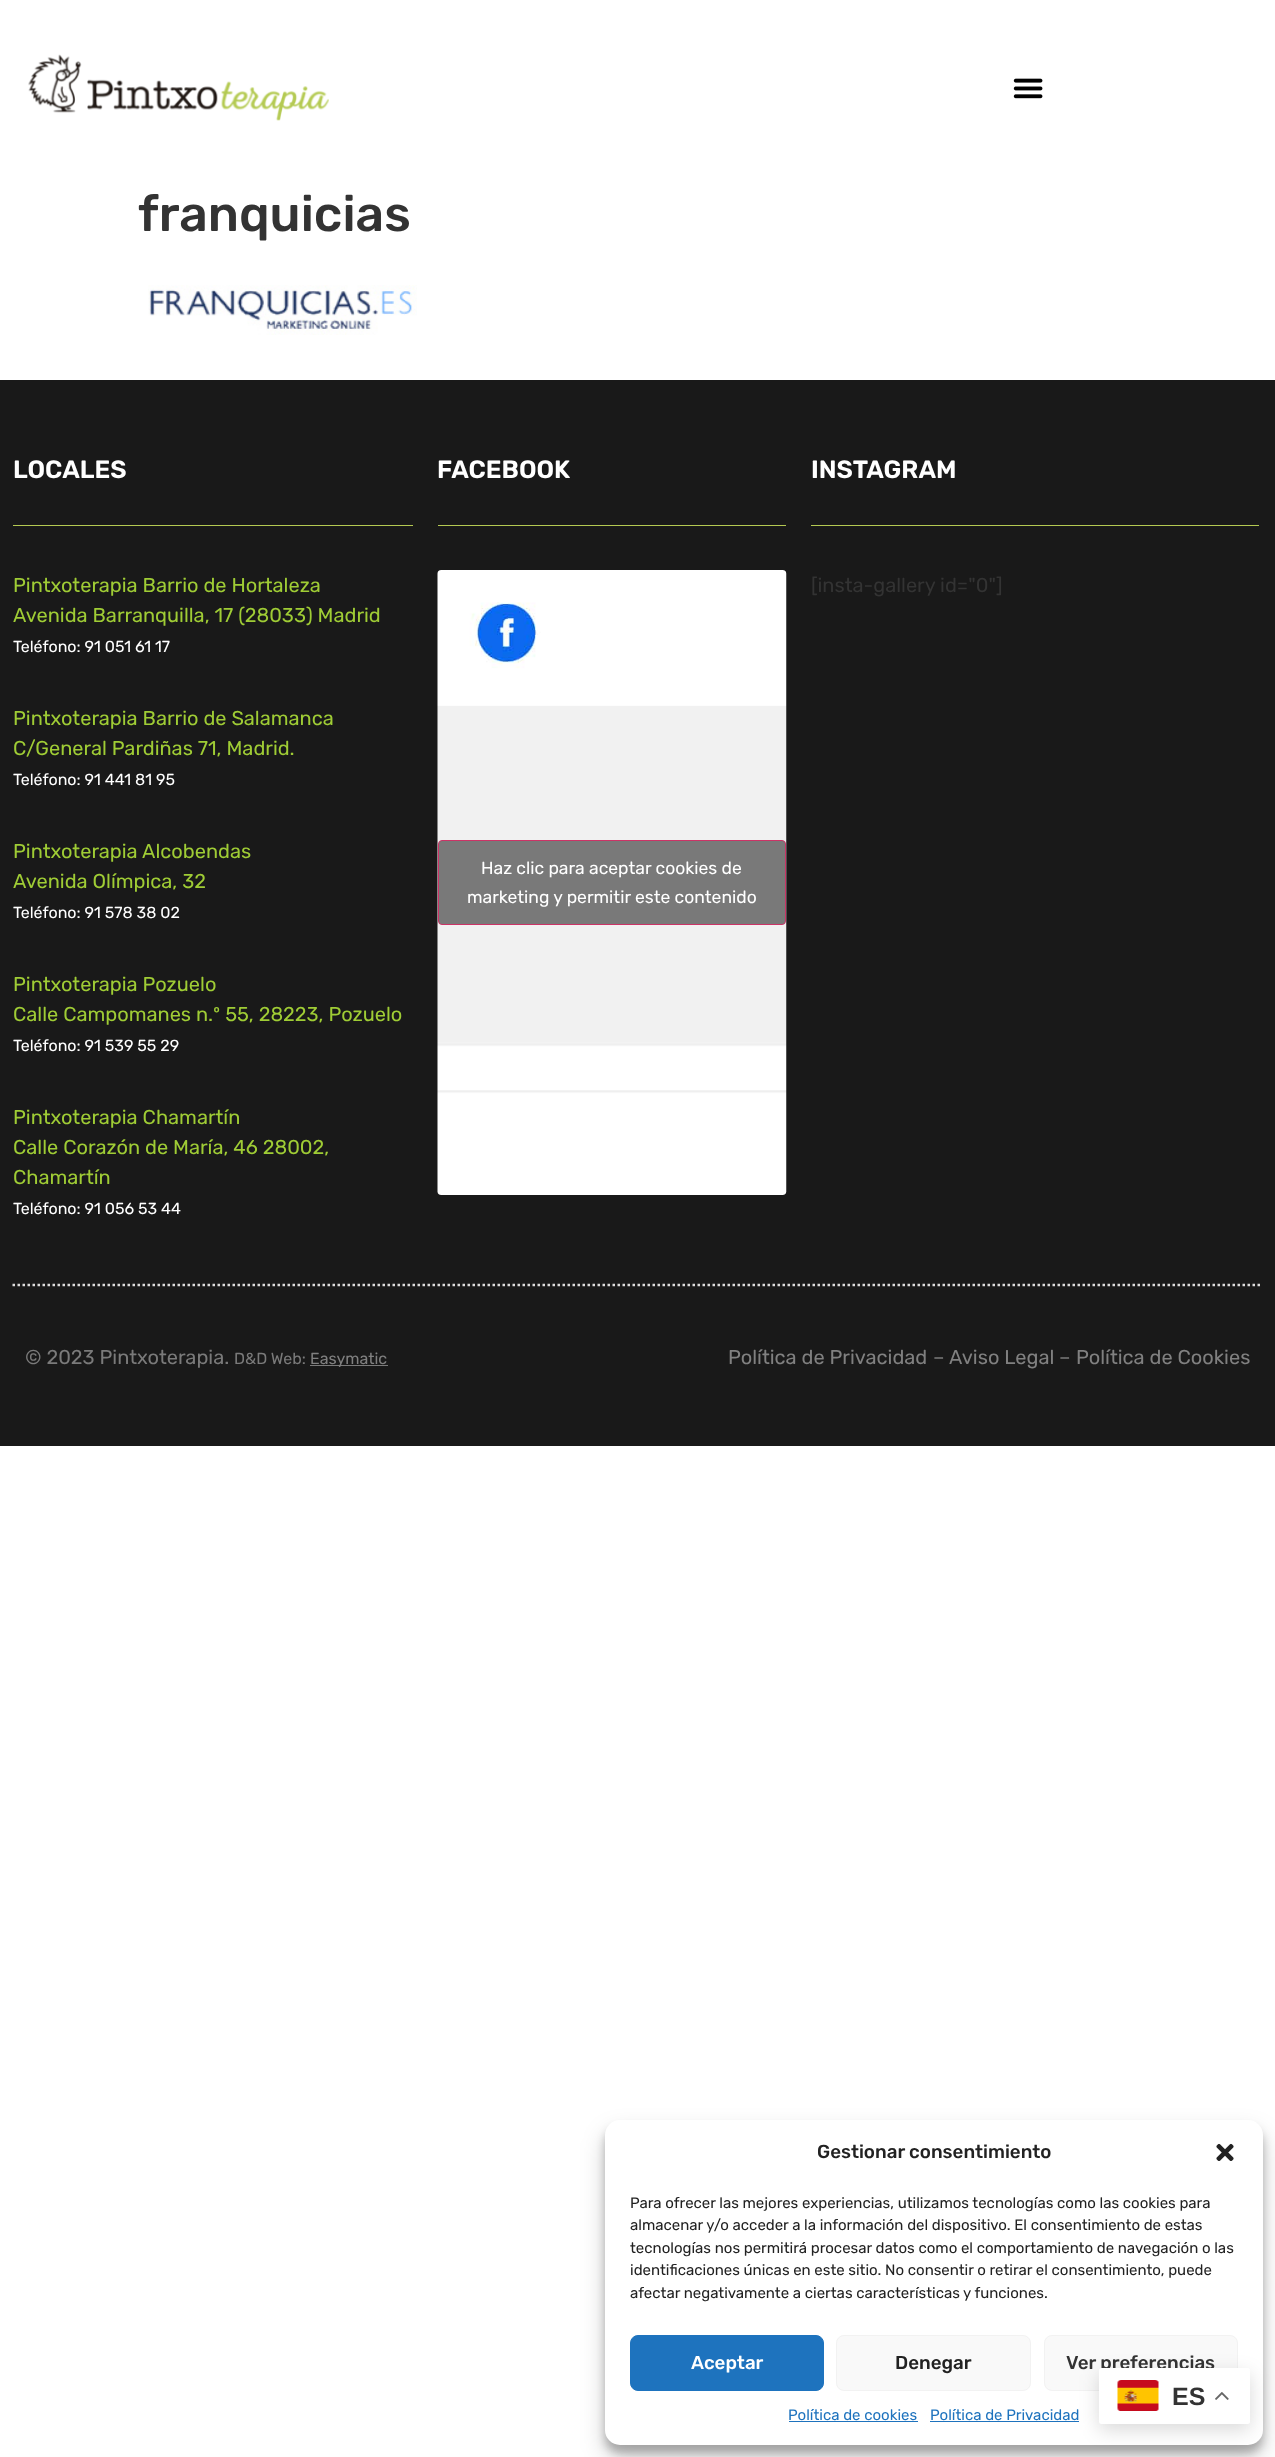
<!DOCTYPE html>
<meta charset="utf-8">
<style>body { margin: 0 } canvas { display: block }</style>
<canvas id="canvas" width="1275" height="2457"></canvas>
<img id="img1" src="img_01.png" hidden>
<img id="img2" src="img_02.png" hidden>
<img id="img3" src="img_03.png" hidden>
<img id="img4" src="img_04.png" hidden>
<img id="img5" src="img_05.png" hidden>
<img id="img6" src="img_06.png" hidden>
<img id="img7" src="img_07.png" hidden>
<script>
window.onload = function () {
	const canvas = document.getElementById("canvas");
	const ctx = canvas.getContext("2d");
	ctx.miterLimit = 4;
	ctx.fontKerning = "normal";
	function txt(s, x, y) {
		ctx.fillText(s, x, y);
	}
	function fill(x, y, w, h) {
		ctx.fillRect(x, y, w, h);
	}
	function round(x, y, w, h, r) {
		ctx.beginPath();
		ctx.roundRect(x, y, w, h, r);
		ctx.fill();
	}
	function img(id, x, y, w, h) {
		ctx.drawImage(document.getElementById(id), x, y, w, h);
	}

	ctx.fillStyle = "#FFFFFF";
	fill(0, 0, 1275, 2457);
	img("img1", 28, 54, 301, 67);
	img("img2", 1013, 78, 30, 21);
	img("img3", 148, 285, 269, 50);
	ctx.fillStyle = "#191919";
	fill(0, 380, 1275, 1066);
	ctx.fillStyle = "#B4C952";
	fill(13, 525, 400, 1);
	fill(438, 525, 348, 1);
	ctx.fillStyle = "rgba(0, 0, 0, 0.5)";
	ctx.filter = "blur(0.5px)";
	ctx.beginPath();
	ctx.roundRect(438, 570, 348, 625, 4);
	ctx.fill();
	ctx.filter = "none";
	img("img4", 437, 570, 350, 625);
	ctx.fillStyle = "#797979";
	ctx.beginPath();
	ctx.roundRect(438.5, 840.5, 347, 84, 3.5);
	ctx.fill();
	ctx.strokeStyle = "#CC3366";
	ctx.stroke();
	ctx.fillStyle = "#B4C952";
	fill(811, 525, 448, 1);
	ctx.beginPath();
	ctx.moveTo(12.5, 1285);
	ctx.lineTo(1262.5, 1285);
	ctx.strokeStyle = "#DDDCDC";
	ctx.lineWidth = 2.5;
	ctx.setLineDash([2.5, 2.5]);
	ctx.stroke();
	ctx.fillStyle = "#7A7A7A";
	fill(310, 1365, 78, 1);
	ctx.fillStyle = "rgba(0, 0, 0, 0.23)";
	ctx.filter = "blur(4px)";
	ctx.beginPath();
	ctx.roundRect(605, 2128, 658, 325, 15);
	ctx.fill();
	ctx.filter = "none";
	ctx.fillStyle = "rgba(0, 0, 0, 0.19)";
	ctx.filter = "blur(12.5px)";
	ctx.beginPath();
	ctx.roundRect(605, 2133, 658, 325, 15);
	ctx.fill();
	ctx.filter = "none";
	ctx.fillStyle = "#FFFFFF";
	round(605, 2120, 658, 325, 15);
	img("img5", 1216, 2143, 18, 18);
	ctx.fillStyle = "#1E73BE";
	ctx.beginPath();
	ctx.roundRect(630.5, 2335.5, 193, 55, 7.5);
	ctx.fill();
	ctx.strokeStyle = "#1E73BE";
	ctx.lineWidth = 1;
	ctx.setLineDash([]);
	ctx.stroke();
	ctx.fillStyle = "#F9F9F9";
	ctx.beginPath();
	ctx.roundRect(836.5, 2335.5, 194, 55, 7.5);
	ctx.fill();
	ctx.strokeStyle = "#F2F2F2";
	ctx.stroke();
	ctx.beginPath();
	ctx.roundRect(1044.5, 2335.5, 193, 55, 7.5);
	ctx.fill();
	ctx.stroke();
	ctx.fillStyle = "#1E73BE";
	fill(789, 2421, 129, 1);
	fill(930, 2421, 149, 1);
	ctx.fillStyle = "rgba(0, 0, 0, 0.15)";
	ctx.filter = "blur(9.5px)";
	ctx.beginPath();
	ctx.roundRect(1099, 2374, 151, 56, 2.5);
	ctx.fill();
	ctx.filter = "none";
	ctx.font = "500 50px Rubik";
	ctx.fillStyle = "#333333";
	txt("franquicias", 138, 231);
	ctx.font = "600 25px Rubik";
	ctx.fillStyle = "#FFFFFF";
	txt("LOCALES", 13, 478);
	ctx.font = "20px Rubik";
	ctx.fillStyle = "#9FCC35";
	txt("Pintxoterapia Barrio de Hortaleza", 13, 592);
	txt("Avenida Barranquilla, 17 (28033) Madrid", 13, 622);
	ctx.font = "16px Rubik";
	ctx.fillStyle = "#FFFFFF";
	txt("Teléfono: 91 051 61 17", 13, 652);
	ctx.font = "20px Rubik";
	ctx.fillStyle = "#9FCC35";
	txt("Pintxoterapia Barrio de Salamanca", 13, 725);
	txt("C/General Pardiñas 71, Madrid.", 13, 755);
	ctx.font = "16px Rubik";
	ctx.fillStyle = "#FFFFFF";
	txt("Teléfono: 91 441 81 95", 13, 785);
	ctx.font = "20px Rubik";
	ctx.fillStyle = "#9FCC35";
	txt("Pintxoterapia Alcobendas", 13, 858);
	txt("Avenida Olímpica, 32", 13, 888);
	ctx.font = "16px Rubik";
	ctx.fillStyle = "#FFFFFF";
	txt("Teléfono: 91 578 38 02", 13, 918);
	ctx.font = "20px Rubik";
	ctx.fillStyle = "#9FCC35";
	txt("Pintxoterapia Pozuelo", 13, 991);
	txt("Calle Campomanes n.º 55, 28223, Pozuelo", 13, 1021);
	ctx.font = "16px Rubik";
	ctx.fillStyle = "#FFFFFF";
	txt("Teléfono: 91 539 55 29", 13, 1051);
	ctx.font = "20px Rubik";
	ctx.fillStyle = "#9FCC35";
	txt("Pintxoterapia Chamartín", 13, 1124);
	txt("Calle Corazón de María, 46 28002,", 13, 1154);
	txt("Chamartín", 13, 1184);
	ctx.font = "16px Rubik";
	ctx.fillStyle = "#FFFFFF";
	txt("Teléfono: 91 056 53 44", 13, 1214);
	ctx.font = "600 25px Rubik";
	txt("FACEBOOK", 437, 478);
	ctx.font = "17.5px Rubik";
	txt("Haz clic para aceptar cookies de", 481, 874);
	txt("marketing y permitir este contenido", 467, 903);
	ctx.font = "600 25px Rubik";
	txt("INSTAGRAM", 811, 478);
	ctx.font = "20px Rubik";
	ctx.fillStyle = "#333333";
	txt("[insta-gallery id=\"0\"]", 811, 592);
	ctx.fillStyle = "#7A7A7A";
	txt("© 2023 Pintxoterapia.", 25, 1364);
	ctx.font = "16px Rubik";
	txt("D&D Web:", 234, 1364);
	ctx.fillStyle = "#808080";
	txt("Easymatic", 310, 1364);
	ctx.font = "20px Rubik";
	txt("Política de Privacidad", 728, 1364);
	ctx.fillStyle = "#7A7A7A";
	txt("–", 933, 1364);
	ctx.fillStyle = "#808080";
	txt("Aviso Legal", 949, 1364);
	ctx.fillStyle = "#7A7A7A";
	txt("–", 1059, 1364);
	ctx.fillStyle = "#808080";
	txt("Política de Cookies", 1076, 1364);
	ctx.font = "500 18.75px Rubik";
	ctx.fillStyle = "#222222";
	txt("Gestionar consentimiento", 817, 2158);
	ctx.font = "15px Rubik";
	txt("Para ofrecer las mejores experiencias, utilizamos tecnologías como las cookies para", 630, 2208);
	txt("almacenar y/o acceder a la información del dispositivo. El consentimiento de estas", 630, 2230);
	txt("tecnologías nos permitirá procesar datos como el comportamiento de navegación o las", 630, 2253);
	txt("identificaciones únicas en este sitio. No consentir o retirar el consentimiento, puede", 630, 2275);
	txt("afectar negativamente a ciertas características y funciones.", 630, 2298);
	ctx.font = "500 18.75px Rubik";
	ctx.fillStyle = "#FFFFFF";
	txt("Aceptar", 691, 2369);
	ctx.fillStyle = "#222222";
	txt("Denegar", 895, 2369);
	ctx.fillStyle = "#333333";
	txt("Ver preferencias", 1066, 2369);
	ctx.font = "15px Rubik";
	ctx.fillStyle = "#1E73BE";
	txt("Política de cookies", 788, 2420);
	txt("Política de Privacidad", 930, 2420);
	ctx.fillStyle = "#FFFFFF";
	round(1099, 2368, 151, 56, 2.5);
	img("img6", 1117, 2380, 42, 31);
	ctx.font = "bold 25px Liberation Sans";
	ctx.fillStyle = "#333333";
	txt("ES", 1172, 2405);
	img("img7", 1215, 2392, 14, 8);
};
</script>
